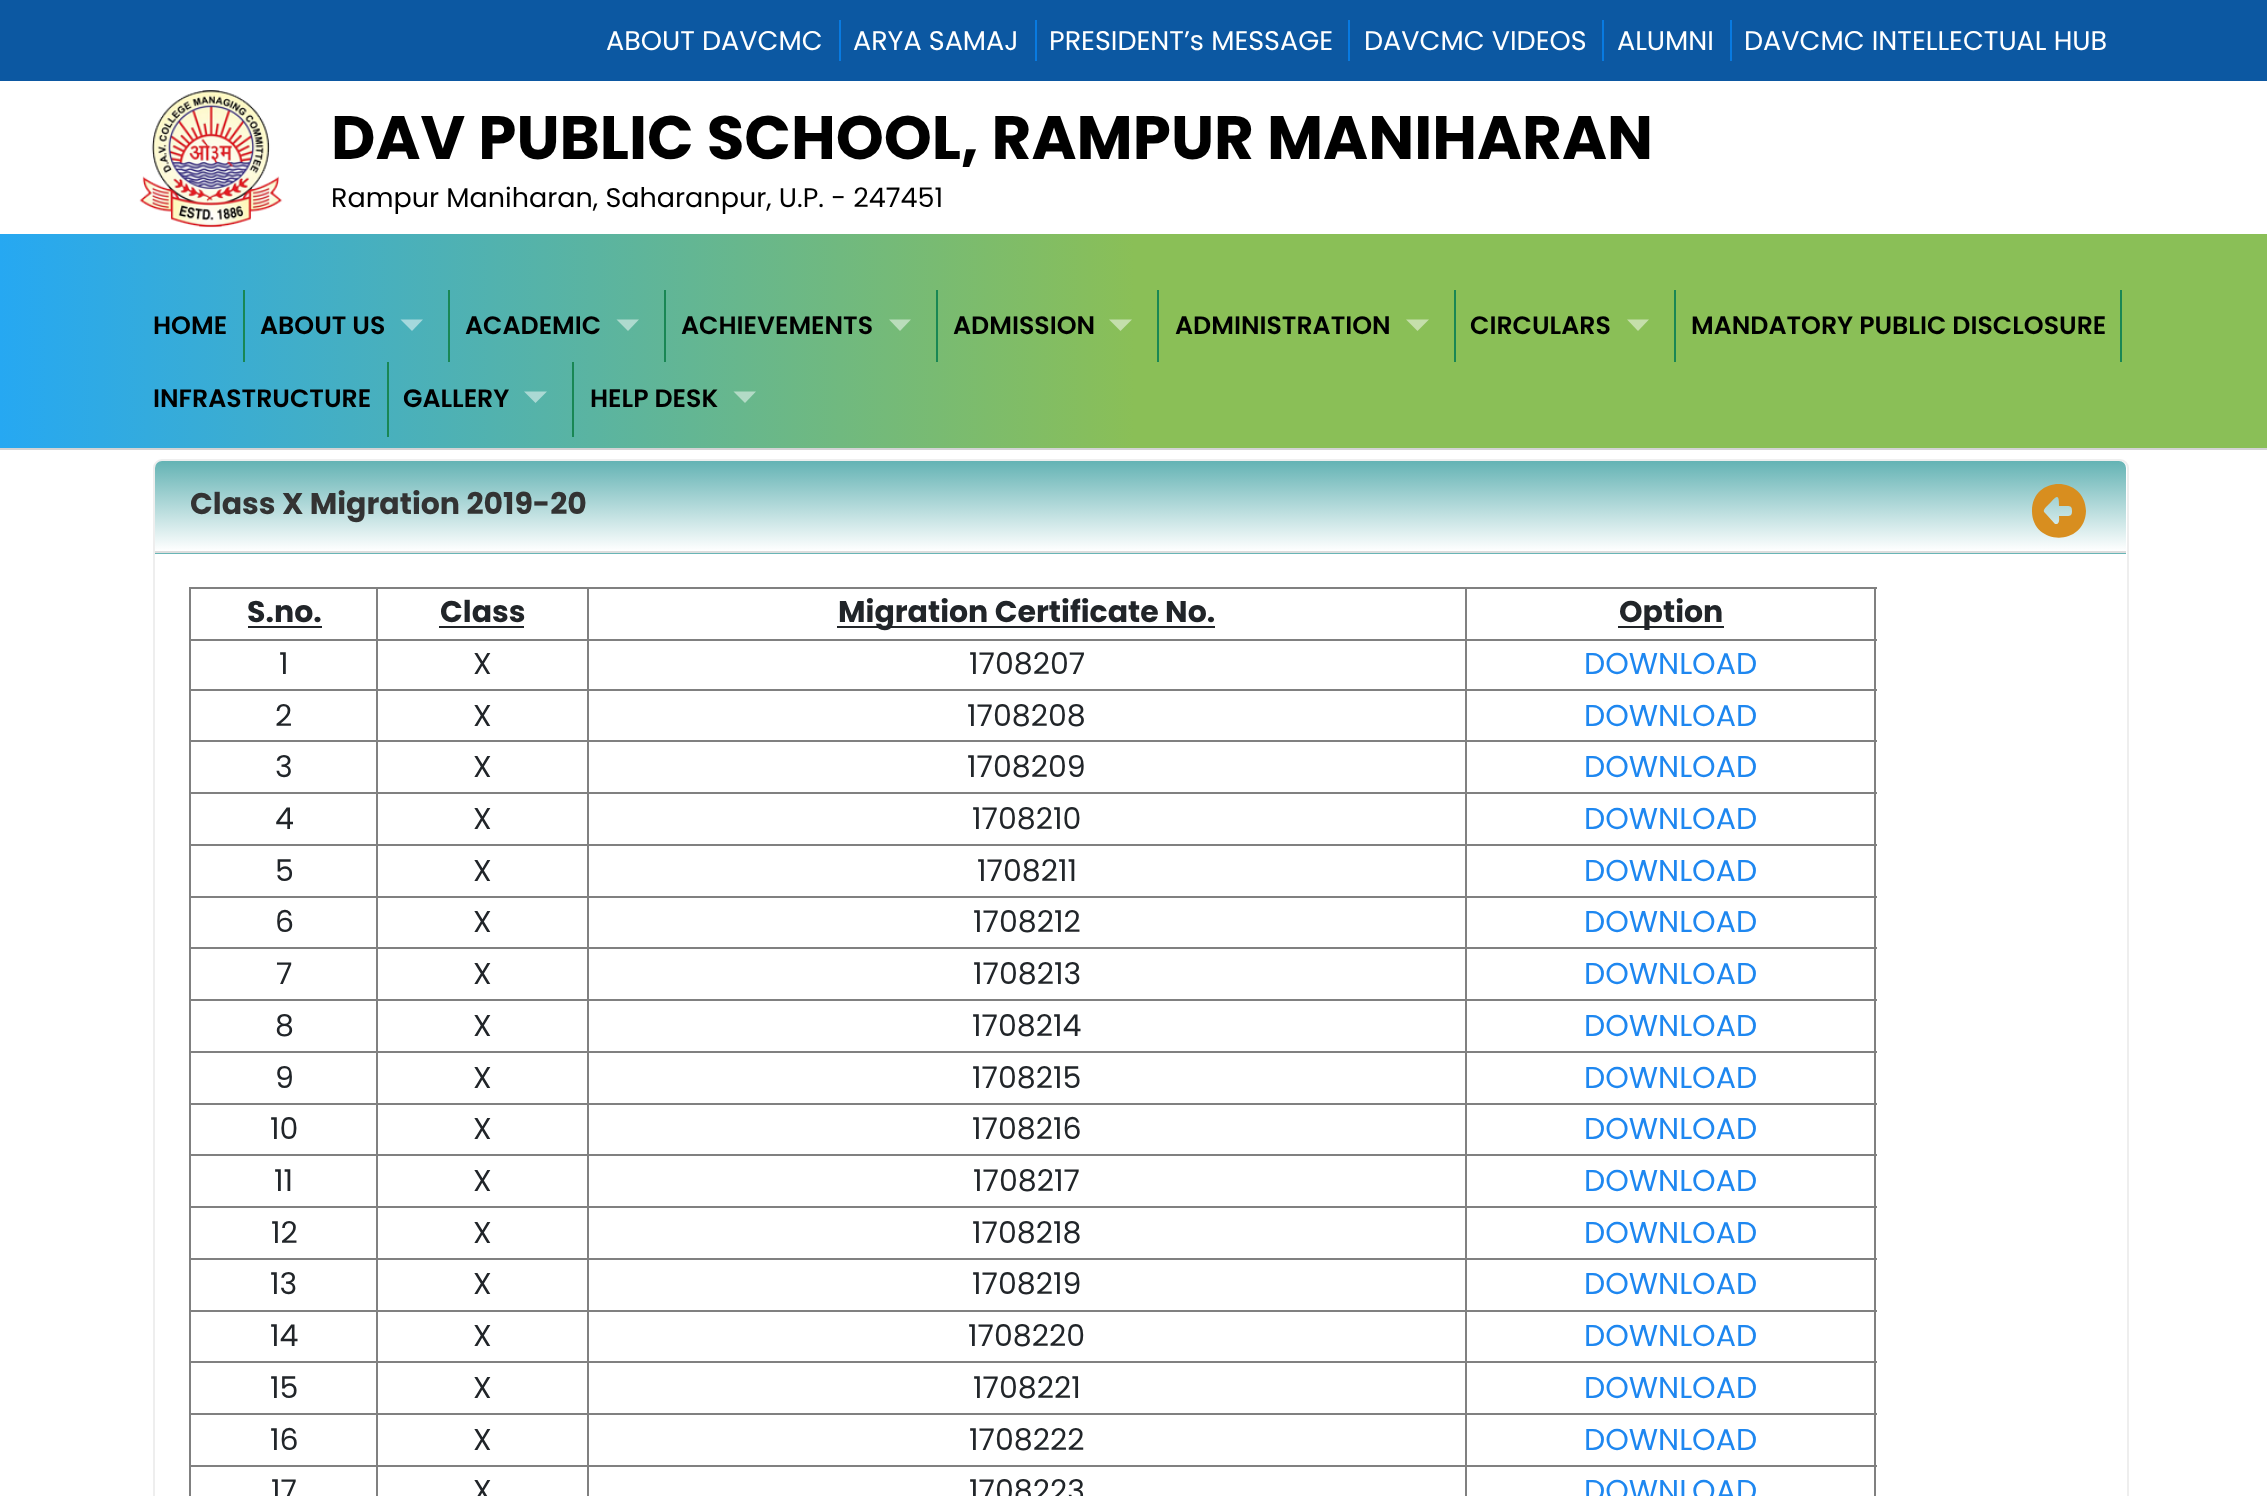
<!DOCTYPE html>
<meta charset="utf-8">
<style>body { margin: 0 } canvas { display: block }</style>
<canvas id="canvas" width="2267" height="1496"></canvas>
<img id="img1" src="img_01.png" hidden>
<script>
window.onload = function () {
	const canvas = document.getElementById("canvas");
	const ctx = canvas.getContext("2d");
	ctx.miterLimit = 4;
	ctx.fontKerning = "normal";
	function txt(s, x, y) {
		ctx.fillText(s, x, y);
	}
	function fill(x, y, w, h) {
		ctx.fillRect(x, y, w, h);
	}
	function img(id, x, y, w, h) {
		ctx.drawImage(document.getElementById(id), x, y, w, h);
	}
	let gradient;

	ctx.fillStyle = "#FFFFFF";
	fill(0, 0, 2267, 1496);
	ctx.fillStyle = "#0C58A2";
	fill(0, 0, 2267, 81);
	ctx.fillStyle = "#087AE1";
	fill(839, 20, 2, 41);
	fill(1035, 20, 2, 41);
	fill(1348, 20, 2, 41);
	fill(1602, 20, 2, 41);
	fill(1730, 20, 2, 41);
	img("img1", 139, 90, 144, 138);
	gradient = ctx.createLinearGradient(0, 341, 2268, 341);
	gradient.addColorStop(0, "#26A8F2");
	gradient.addColorStop(0.5, "#8ABF57");
	ctx.fillStyle = gradient;
	fill(0, 234, 2267, 214);
	ctx.fillStyle = "#D3D3D4";
	fill(0, 448, 2267, 2);
	ctx.fillStyle = "#198754";
	fill(243, 290, 2, 72);
	fill(448, 290, 2, 72);
	ctx.fillStyle = "rgba(255, 255, 255, 0.5)";
	ctx.beginPath();
	ctx.moveTo(400.5, 319.5);
	ctx.lineTo(423, 319.5);
	ctx.lineTo(412, 331);
	ctx.closePath();
	ctx.fill();
	ctx.fillStyle = "#198754";
	fill(664, 290, 2, 72);
	ctx.fillStyle = "#AEDACE";
	ctx.beginPath();
	ctx.moveTo(616.5, 319.5);
	ctx.lineTo(639, 319.5);
	ctx.lineTo(628, 331);
	ctx.closePath();
	ctx.fill();
	ctx.fillStyle = "#198754";
	fill(936, 290, 2, 72);
	ctx.fillStyle = "#BADDBB";
	ctx.beginPath();
	ctx.moveTo(889, 319.5);
	ctx.lineTo(911, 319.5);
	ctx.lineTo(900, 331);
	ctx.closePath();
	ctx.fill();
	ctx.fillStyle = "#198754";
	fill(1157, 290, 2, 72);
	ctx.fillStyle = "rgba(255, 255, 255, 0.5)";
	ctx.beginPath();
	ctx.moveTo(1109, 319.5);
	ctx.lineTo(1132, 319.5);
	ctx.lineTo(1120.5, 331);
	ctx.closePath();
	ctx.fill();
	ctx.fillStyle = "#198754";
	fill(1454, 290, 2, 72);
	ctx.fillStyle = "#C5DFAB";
	ctx.beginPath();
	ctx.moveTo(1406, 319.5);
	ctx.lineTo(1429, 319.5);
	ctx.lineTo(1417.5, 331);
	ctx.closePath();
	ctx.fill();
	ctx.fillStyle = "#198754";
	fill(1674, 290, 2, 72);
	ctx.fillStyle = "#C5DFAB";
	ctx.beginPath();
	ctx.moveTo(1627, 319.5);
	ctx.lineTo(1649, 319.5);
	ctx.lineTo(1638, 331);
	ctx.closePath();
	ctx.fill();
	ctx.fillStyle = "#198754";
	fill(2120, 290, 2, 72);
	fill(387, 362, 2, 75);
	fill(572, 362, 2, 75);
	ctx.fillStyle = "rgba(255, 255, 255, 0.5)";
	ctx.beginPath();
	ctx.moveTo(524, 391.5);
	ctx.lineTo(547, 391.5);
	ctx.lineTo(535.5, 403);
	ctx.closePath();
	ctx.fill();
	ctx.fillStyle = "#B3DBC6";
	ctx.beginPath();
	ctx.moveTo(733.5, 391.5);
	ctx.lineTo(756, 391.5);
	ctx.lineTo(745, 403);
	ctx.closePath();
	ctx.fill();
	ctx.beginPath();
	ctx.roundRect(154, 460, 1974, 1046, 8);
	ctx.strokeStyle = "#EEEEEE";
	ctx.lineWidth = 2;
	ctx.stroke();
	gradient = ctx.createLinearGradient(1141, 461, 1141, 551);
	gradient.addColorStop(0, "#64B3B4");
	gradient.addColorStop(1, "#FFFFFF");
	ctx.fillStyle = gradient;
	ctx.beginPath();
	ctx.roundRect(155, 461, 1971, 90, [7, 7, 0, 0]);
	ctx.fill();
	gradient = ctx.createLinearGradient(1141, 551, 1141, 641);
	gradient.addColorStop(0, "#64B3B4");
	gradient.addColorStop(1, "#FFFFFF");
	ctx.fillStyle = gradient;
	fill(155, 553, 1971, 1);
	ctx.fillStyle = "#DDDDDD";
	fill(155, 551, 1971, 2);
	ctx.fillStyle = "#D88E1F";
	ctx.beginPath();
	ctx.moveTo(2086, 511);
	ctx.bezierCurveTo(2085, 475, 2032, 475, 2032, 511);
	ctx.bezierCurveTo(2032, 546, 2085, 547, 2086, 511);
	ctx.closePath();
	ctx.moveTo(2055, 524);
	ctx.lineTo(2046, 514);
	ctx.bezierCurveTo(2043, 511, 2043, 511, 2046, 507);
	ctx.lineTo(2051, 502);
	ctx.bezierCurveTo(2058, 494, 2059, 496, 2059, 506);
	ctx.lineTo(2067, 506);
	ctx.bezierCurveTo(2071, 506, 2072, 507, 2072, 511);
	ctx.bezierCurveTo(2072, 515, 2071, 516, 2067, 516);
	ctx.lineTo(2059, 516);
	ctx.bezierCurveTo(2059, 518, 2060, 523, 2057, 524);
	ctx.closePath();
	ctx.fill();
	ctx.fillStyle = "#808080";
	fill(189, 587, 1688, 2);
	fill(1874, 587, 2, 909);
	fill(189, 587, 2, 909);
	ctx.fillStyle = "#212529";
	fill(248, 626, 74, 2);
	ctx.fillStyle = "#808080";
	fill(1465, 639, 412, 2);
	fill(1465, 689, 412, 2);
	fill(1465, 740, 412, 2);
	fill(1465, 792, 412, 2);
	fill(1465, 844, 412, 2);
	fill(1465, 896, 412, 2);
	fill(1465, 947, 412, 2);
	fill(1465, 999, 412, 2);
	fill(1465, 1051, 412, 2);
	fill(1465, 1103, 412, 2);
	fill(1465, 1154, 412, 2);
	fill(1465, 1206, 412, 2);
	fill(1465, 1258, 412, 2);
	fill(1465, 1310, 412, 2);
	fill(1465, 1361, 412, 2);
	fill(1465, 1413, 412, 2);
	fill(1465, 1465, 412, 2);
	fill(1465, 1465, 2, 31);
	fill(587, 1465, 880, 2);
	fill(1465, 1413, 2, 54);
	fill(587, 1413, 880, 2);
	fill(1465, 1361, 2, 54);
	fill(587, 1361, 880, 2);
	fill(1465, 1310, 2, 54);
	fill(587, 1310, 880, 2);
	fill(1465, 1258, 2, 54);
	fill(587, 1258, 880, 2);
	fill(1465, 1206, 2, 54);
	fill(587, 1206, 880, 2);
	fill(1465, 1154, 2, 54);
	fill(587, 1154, 880, 2);
	fill(1465, 1103, 2, 54);
	fill(587, 1103, 880, 2);
	fill(1465, 1051, 2, 54);
	fill(587, 1051, 880, 2);
	fill(1465, 999, 2, 54);
	fill(587, 999, 880, 2);
	fill(1465, 947, 2, 54);
	fill(587, 947, 880, 2);
	fill(1465, 896, 2, 54);
	fill(587, 896, 880, 2);
	fill(1465, 844, 2, 54);
	fill(587, 844, 880, 2);
	fill(1465, 792, 2, 54);
	fill(587, 792, 880, 2);
	fill(1465, 740, 2, 54);
	fill(587, 740, 880, 2);
	fill(1465, 689, 2, 54);
	fill(587, 689, 880, 2);
	fill(1465, 639, 2, 52);
	fill(587, 639, 880, 2);
	fill(587, 1465, 2, 31);
	fill(376, 1465, 214, 2);
	fill(587, 1413, 2, 54);
	fill(376, 1413, 214, 2);
	fill(587, 1361, 2, 54);
	fill(376, 1361, 214, 2);
	fill(587, 1310, 2, 54);
	fill(376, 1310, 214, 2);
	fill(587, 1258, 2, 54);
	fill(376, 1258, 214, 2);
	fill(587, 1206, 2, 54);
	fill(376, 1206, 214, 2);
	fill(587, 1154, 2, 54);
	fill(376, 1154, 214, 2);
	fill(587, 1103, 2, 54);
	fill(376, 1103, 214, 2);
	fill(587, 1051, 2, 54);
	fill(376, 1051, 214, 2);
	fill(587, 999, 2, 54);
	fill(376, 999, 214, 2);
	fill(587, 947, 2, 54);
	fill(376, 947, 214, 2);
	fill(587, 896, 2, 54);
	fill(376, 896, 214, 2);
	fill(587, 844, 2, 54);
	fill(376, 844, 214, 2);
	fill(587, 792, 2, 54);
	fill(376, 792, 214, 2);
	fill(587, 740, 2, 54);
	fill(376, 740, 214, 2);
	fill(587, 689, 2, 54);
	fill(376, 689, 214, 2);
	fill(587, 639, 2, 52);
	fill(376, 639, 214, 2);
	fill(376, 1465, 2, 31);
	fill(189, 1465, 189, 2);
	fill(376, 1413, 2, 54);
	fill(189, 1413, 189, 2);
	fill(376, 1361, 2, 54);
	fill(189, 1361, 189, 2);
	fill(376, 1310, 2, 54);
	fill(189, 1310, 189, 2);
	fill(376, 1258, 2, 54);
	fill(189, 1258, 189, 2);
	fill(376, 1206, 2, 54);
	fill(189, 1206, 189, 2);
	fill(376, 1154, 2, 54);
	fill(189, 1154, 189, 2);
	fill(376, 1103, 2, 54);
	fill(189, 1103, 189, 2);
	fill(376, 1051, 2, 54);
	fill(189, 1051, 189, 2);
	fill(376, 999, 2, 54);
	fill(189, 999, 189, 2);
	fill(376, 947, 2, 54);
	fill(189, 947, 189, 2);
	fill(376, 896, 2, 54);
	fill(189, 896, 189, 2);
	fill(376, 844, 2, 54);
	fill(189, 844, 189, 2);
	fill(376, 792, 2, 54);
	fill(189, 792, 189, 2);
	fill(376, 740, 2, 54);
	fill(189, 740, 189, 2);
	fill(376, 689, 2, 54);
	fill(189, 689, 189, 2);
	fill(376, 639, 2, 52);
	fill(189, 639, 189, 2);
	fill(376, 587, 2, 54);
	ctx.fillStyle = "#212529";
	fill(439, 626, 85, 2);
	ctx.fillStyle = "#808080";
	fill(587, 587, 2, 54);
	ctx.fillStyle = "#212529";
	fill(837, 626, 378, 2);
	ctx.fillStyle = "#808080";
	fill(1465, 587, 2, 54);
	ctx.fillStyle = "#212529";
	fill(1618, 626, 106, 2);
	ctx.font = "27px Poppins";
	ctx.fillStyle = "#FFFFFF";
	txt("ABOUT DAVCMC", 606, 50);
	txt("ARYA SAMAJ", 853, 50);
	txt("PRESIDENT’s MESSAGE", 1049, 50);
	txt("DAVCMC VIDEOS", 1364, 50);
	txt("ALUMNI", 1617, 50);
	txt("DAVCMC INTELLECTUAL HUB", 1744, 50);
	ctx.font = "bold 61.2px Poppins";
	ctx.fillStyle = "#000000";
	txt("DAV PUBLIC SCHOOL, RAMPUR MANIHARAN", 331, 159);
	ctx.font = "27px Poppins";
	txt("Rampur Maniharan, Saharanpur, U.P. - 247451", 331, 207);
	ctx.font = "600 25.25px Poppins";
	txt("HOME", 153, 334);
	txt("ABOUT US", 260, 334);
	txt("ACADEMIC", 465, 334);
	txt("ACHIEVEMENTS", 681, 334);
	txt("ADMISSION", 953, 334);
	txt("ADMINISTRATION", 1175, 334);
	txt("CIRCULARS", 1470, 334);
	txt("MANDATORY PUBLIC DISCLOSURE", 1691, 334);
	txt("INFRASTRUCTURE", 153, 407);
	txt("GALLERY", 403, 407);
	txt("HELP DESK", 590, 407);
	ctx.font = "bold 30px Poppins";
	ctx.fillStyle = "#333333";
	txt("Class X Migration 2019-20", 190, 514);
	ctx.fillStyle = "#212529";
	txt("S.no.", 247, 622);
	txt("Class", 440, 622);
	txt("Migration Certificate No.", 838, 622);
	txt("Option", 1619, 622);
	ctx.font = "30px Poppins";
	txt("1", 279, 674);
	txt("X", 473, 674);
	txt("1708207", 969, 674);
	ctx.fillStyle = "#1E87F0";
	txt("DOWNLOAD", 1584, 674);
	ctx.fillStyle = "#212529";
	txt("2", 275, 726);
	txt("X", 473, 726);
	txt("1708208", 967, 726);
	ctx.fillStyle = "#1E87F0";
	txt("DOWNLOAD", 1584, 726);
	ctx.fillStyle = "#212529";
	txt("3", 275, 777);
	txt("X", 473, 777);
	txt("1708209", 967, 777);
	ctx.fillStyle = "#1E87F0";
	txt("DOWNLOAD", 1584, 777);
	ctx.fillStyle = "#212529";
	txt("4", 275, 829);
	txt("X", 473, 829);
	txt("1708210", 972, 829);
	ctx.fillStyle = "#1E87F0";
	txt("DOWNLOAD", 1584, 829);
	ctx.fillStyle = "#212529";
	txt("5", 275, 881);
	txt("X", 473, 881);
	txt("1708211", 977, 881);
	ctx.fillStyle = "#1E87F0";
	txt("DOWNLOAD", 1584, 881);
	ctx.fillStyle = "#212529";
	txt("6", 275, 932);
	txt("X", 473, 932);
	txt("1708212", 973, 932);
	ctx.fillStyle = "#1E87F0";
	txt("DOWNLOAD", 1584, 932);
	ctx.fillStyle = "#212529";
	txt("7", 276, 984);
	txt("X", 473, 984);
	txt("1708213", 973, 984);
	ctx.fillStyle = "#1E87F0";
	txt("DOWNLOAD", 1584, 984);
	ctx.fillStyle = "#212529";
	txt("8", 275, 1036);
	txt("X", 473, 1036);
	txt("1708214", 972, 1036);
	ctx.fillStyle = "#1E87F0";
	txt("DOWNLOAD", 1584, 1036);
	ctx.fillStyle = "#212529";
	txt("9", 275, 1088);
	txt("X", 473, 1088);
	txt("1708215", 972, 1088);
	ctx.fillStyle = "#1E87F0";
	txt("DOWNLOAD", 1584, 1088);
	ctx.fillStyle = "#212529";
	txt("10", 270, 1139);
	txt("X", 473, 1139);
	txt("1708216", 972, 1139);
	ctx.fillStyle = "#1E87F0";
	txt("DOWNLOAD", 1584, 1139);
	ctx.fillStyle = "#212529";
	txt("11", 274, 1191);
	txt("X", 473, 1191);
	txt("1708217", 973, 1191);
	ctx.fillStyle = "#1E87F0";
	txt("DOWNLOAD", 1584, 1191);
	ctx.fillStyle = "#212529";
	txt("12", 271, 1243);
	txt("X", 473, 1243);
	txt("1708218", 972, 1243);
	ctx.fillStyle = "#1E87F0";
	txt("DOWNLOAD", 1584, 1243);
	ctx.fillStyle = "#212529";
	txt("13", 270, 1294);
	txt("X", 473, 1294);
	txt("1708219", 972, 1294);
	ctx.fillStyle = "#1E87F0";
	txt("DOWNLOAD", 1584, 1294);
	ctx.fillStyle = "#212529";
	txt("14", 270, 1346);
	txt("X", 473, 1346);
	txt("1708220", 968, 1346);
	ctx.fillStyle = "#1E87F0";
	txt("DOWNLOAD", 1584, 1346);
	ctx.fillStyle = "#212529";
	txt("15", 270, 1398);
	txt("X", 473, 1398);
	txt("1708221", 973, 1398);
	ctx.fillStyle = "#1E87F0";
	txt("DOWNLOAD", 1584, 1398);
	ctx.fillStyle = "#212529";
	txt("16", 270, 1450);
	txt("X", 473, 1450);
	txt("1708222", 969, 1450);
	ctx.fillStyle = "#1E87F0";
	txt("DOWNLOAD", 1584, 1450);
	ctx.fillStyle = "#212529";
	txt("17", 271, 1501);
	txt("X", 473, 1501);
	txt("1708223", 969, 1501);
	ctx.fillStyle = "#1E87F0";
	txt("DOWNLOAD", 1584, 1501);
};
</script>
